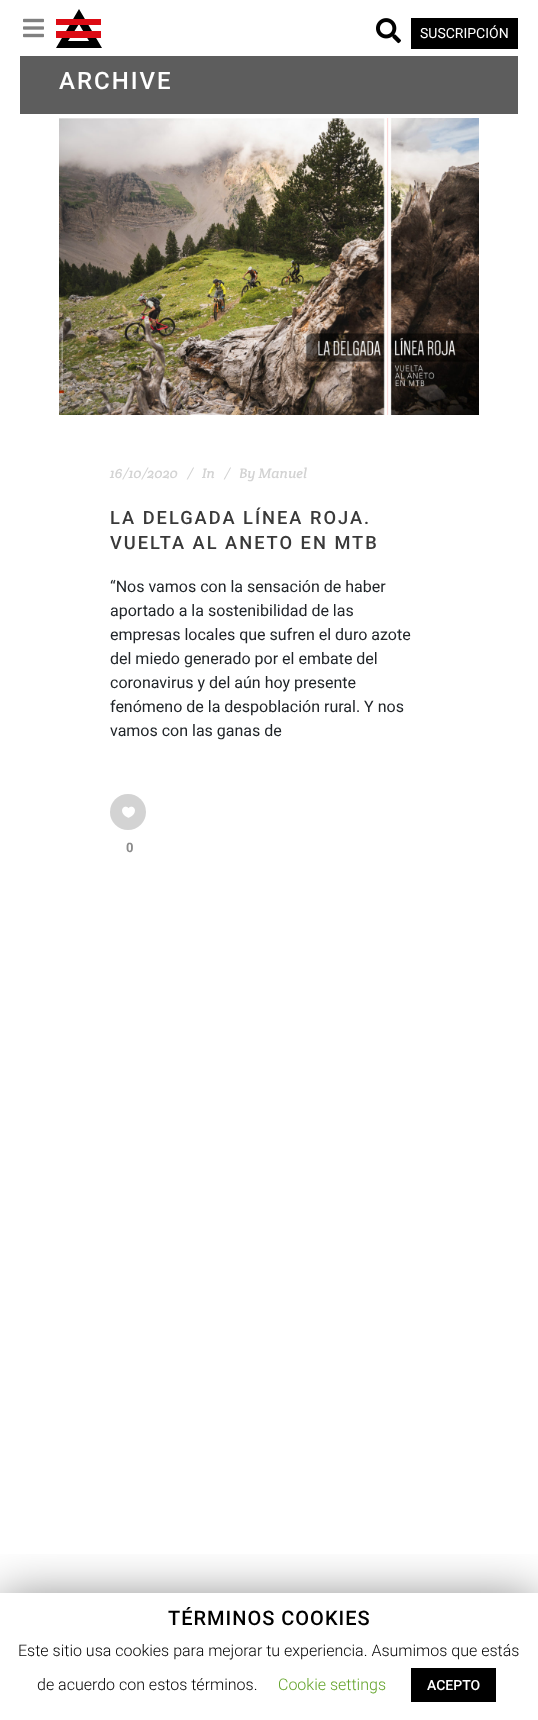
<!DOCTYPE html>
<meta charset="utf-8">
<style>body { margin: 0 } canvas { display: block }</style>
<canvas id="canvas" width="538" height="1720"></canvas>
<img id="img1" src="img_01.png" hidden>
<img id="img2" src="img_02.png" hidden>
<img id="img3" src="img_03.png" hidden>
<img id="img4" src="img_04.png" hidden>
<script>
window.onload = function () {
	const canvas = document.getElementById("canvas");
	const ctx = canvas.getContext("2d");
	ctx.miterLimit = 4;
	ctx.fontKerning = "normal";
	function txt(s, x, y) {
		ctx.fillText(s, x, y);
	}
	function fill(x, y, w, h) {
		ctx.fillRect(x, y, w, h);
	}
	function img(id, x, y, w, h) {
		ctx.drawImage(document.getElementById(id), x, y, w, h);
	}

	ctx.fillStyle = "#FFFFFF";
	fill(0, 0, 538, 1720);
	img("img1", 23, 18, 21, 20);
	ctx.fillStyle = "#000000";
	ctx.beginPath();
	ctx.moveTo(102, 48);
	ctx.lineTo(79, 9);
	ctx.lineTo(56, 48);
	ctx.moveTo(68, 41);
	ctx.lineTo(79, 24);
	ctx.lineTo(89, 41);
	ctx.fill();
	img("img2", 376, 18, 25, 26);
	ctx.fillStyle = "#DD0B14";
	fill(56, 19, 45, 6);
	fill(56, 31, 45, 7);
	ctx.fillStyle = "#000000";
	fill(411, 18, 107, 31);
	ctx.fillStyle = "#5D5D5D";
	fill(20, 56, 498, 58);
	img("img3", 59, 118, 420, 297);
	ctx.fillStyle = "#D3D3D3";
	ctx.beginPath();
	ctx.arc(128, 812, 18, 0, Math.PI * 2);
	ctx.fill();
	img("img4", 122, 806, 13, 12);
	ctx.save();
	ctx.beginPath();
	ctx.rect(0, 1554, 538, 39);
	ctx.clip();
	ctx.fillStyle = "rgba(0, 0, 0, 0.5)";
	ctx.filter = "blur(25px)";
	ctx.beginPath();
	ctx.rect(0, 1598, 538, 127);
	ctx.fill();
	ctx.filter = "none";
	ctx.restore();
	ctx.fillStyle = "#000000";
	fill(411, 1668, 85, 34);
	ctx.font = "14px Roboto";
	ctx.fillStyle = "#FFFFFF";
	txt("SUSCRIPCIÓN", 420, 38);
	ctx.letterSpacing = "2px";
	ctx.font = "500 24px Roboto";
	txt("ARCHIVE", 59, 89);
	ctx.letterSpacing = "0px";
	ctx.font = "italic 14px Crete Round";
	ctx.fillStyle = "#D3D3D3";
	txt("16/10/2020", 110, 478);
	txt("/", 187, 478);
	txt("In", 202, 478);
	txt("/", 224, 478);
	txt("By Manuel", 239, 478);
	ctx.letterSpacing = "2px";
	ctx.font = "500 18.25px Roboto";
	ctx.fillStyle = "#393939";
	txt("LA DELGADA LÍNEA ROJA.", 110, 524);
	txt("VUELTA AL ANETO EN MTB", 110, 549);
	ctx.letterSpacing = "0px";
	ctx.font = "16px Roboto";
	ctx.fillStyle = "#212529";
	txt("“Nos vamos con la sensación de haber", 110, 592);
	txt("aportado a la sostenibilidad de las", 110, 616);
	txt("empresas locales que sufren el duro azote", 110, 640);
	txt("del miedo generado por el embate del", 110, 664);
	txt("coronavirus y del aún hoy presente", 110, 688);
	txt("fenómeno de la despoblación rural. Y nos", 110, 712);
	txt("vamos con las ganas de", 110, 736);
	ctx.font = "bold 13px Roboto";
	ctx.fillStyle = "#8B8B8B";
	txt("0", 126, 852);
	ctx.letterSpacing = "1px";
	ctx.font = "500 20px Roboto";
	ctx.fillStyle = "#000000";
	txt("TÉRMINOS COOKIES", 168, 1625);
	ctx.letterSpacing = "0px";
	ctx.font = "300 16px Roboto";
	txt("Este sitio usa cookies para mejorar tu experiencia. Asumimos que estás", 18, 1656);
	txt("de acuerdo con estos términos.", 37, 1690);
	ctx.fillStyle = "#62A329";
	txt("Cookie settings", 278, 1690);
	ctx.font = "500 14px Roboto";
	ctx.fillStyle = "#FFFFFF";
	txt("ACEPTO", 427, 1690);
};
</script>
